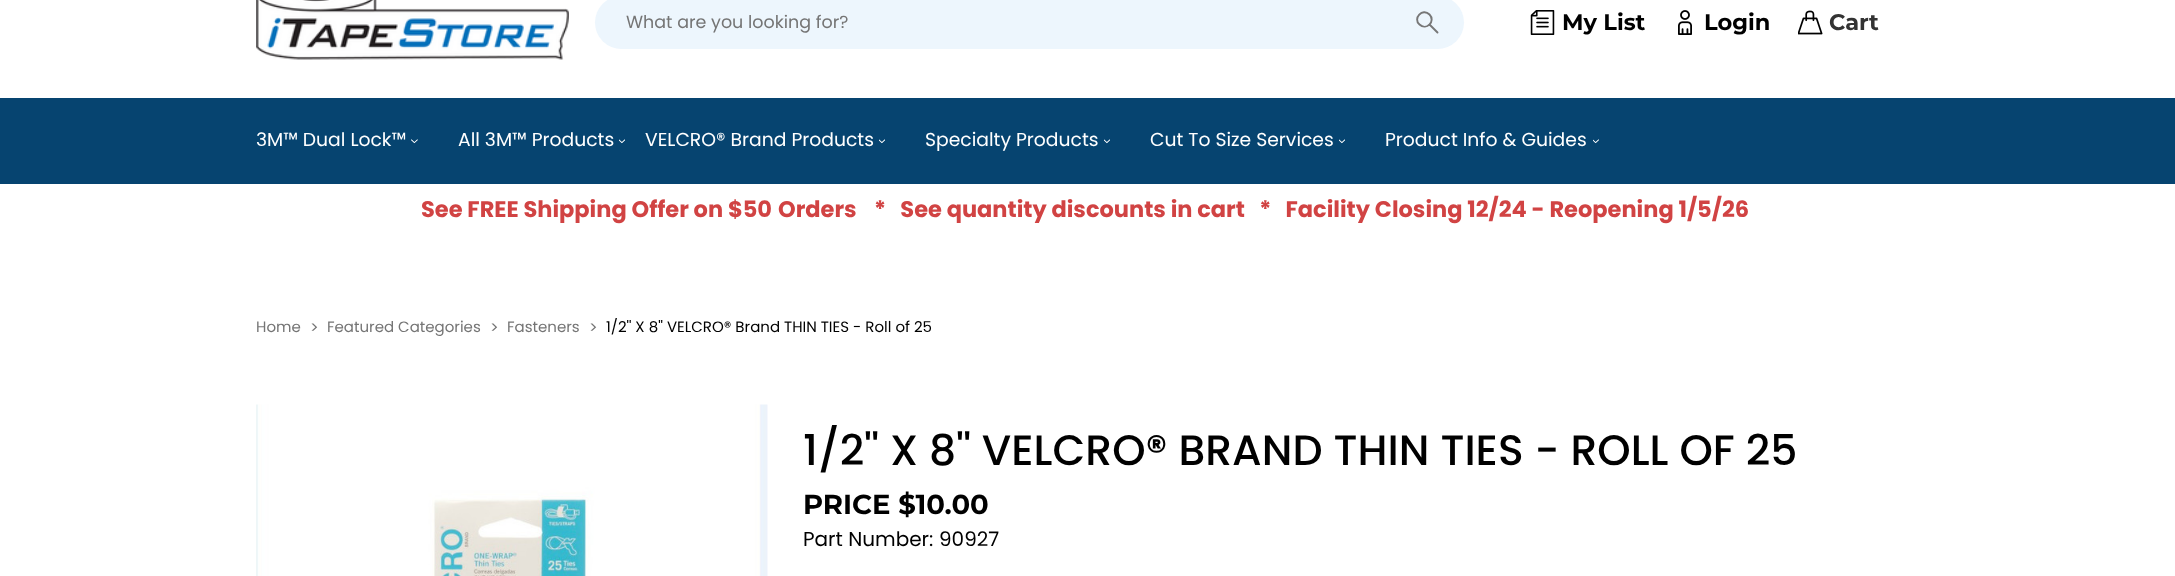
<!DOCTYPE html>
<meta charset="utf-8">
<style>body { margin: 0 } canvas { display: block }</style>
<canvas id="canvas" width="2175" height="576"></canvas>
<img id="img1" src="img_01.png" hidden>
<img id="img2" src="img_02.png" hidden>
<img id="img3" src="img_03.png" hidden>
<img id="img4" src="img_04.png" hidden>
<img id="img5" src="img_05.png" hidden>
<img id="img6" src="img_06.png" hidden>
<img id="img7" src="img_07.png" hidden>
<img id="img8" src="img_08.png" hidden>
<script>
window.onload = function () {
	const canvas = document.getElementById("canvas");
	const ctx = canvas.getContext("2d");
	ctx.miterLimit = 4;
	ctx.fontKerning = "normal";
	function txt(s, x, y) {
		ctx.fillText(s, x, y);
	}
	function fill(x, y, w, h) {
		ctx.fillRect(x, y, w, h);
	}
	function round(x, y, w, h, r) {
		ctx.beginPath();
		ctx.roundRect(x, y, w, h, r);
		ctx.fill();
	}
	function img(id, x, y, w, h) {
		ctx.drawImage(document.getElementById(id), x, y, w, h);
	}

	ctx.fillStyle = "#FFFFFF";
	fill(0, 0, 2175, 576);
	img("img1", 256, 0, 313, 60);
	ctx.fillStyle = "#EDF6FD";
	round(595, -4, 869, 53, 26.5);
	ctx.beginPath();
	ctx.moveTo(1429.5, 14.5);
	ctx.bezierCurveTo(1436, 21, 1426.5, 31, 1419.5, 24.5);
	ctx.bezierCurveTo(1412.5, 18.5, 1422.5, 7.5, 1429.5, 14.5);
	ctx.closePath();
	ctx.moveTo(1429.5, 24.5);
	ctx.lineTo(1437.5, 32.5);
	ctx.strokeStyle = "#777777";
	ctx.lineWidth = 1.9;
	ctx.lineCap = "round";
	ctx.lineJoin = "round";
	ctx.stroke();
	img("img2", 1530, 10, 25, 25);
	img("img3", 1678, 10, 14, 25);
	img("img4", 1798, 10, 25, 25);
	ctx.fillStyle = "#064470";
	fill(0, 98, 2175, 86);
	img("img5", 411, 139, 7, 5);
	img("img6", 619, 139, 6, 5);
	img("img6", 879, 139, 6, 5);
	img("img6", 1104, 139, 6, 5);
	img("img6", 1339, 139, 6, 5);
	img("img7", 1593, 139, 6, 5);
	img("img8", 256, 404, 512, 172);
	ctx.font = "17.5px Poppins";
	ctx.fillStyle = "#757575";
	txt("What are you looking for?", 626, 28);
	ctx.font = "bold 22.5px Montserrat";
	ctx.fillStyle = "#000000";
	txt("My List", 1562, 30);
	txt("Login", 1704, 30);
	ctx.fillStyle = "#333333";
	txt("Cart", 1829, 30);
	ctx.font = "18.75px Poppins";
	ctx.fillStyle = "#FFFFFF";
	txt("3M™ Dual Lock™", 256, 146);
	txt("All 3M™ Products", 458, 146);
	txt("VELCRO® Brand Products", 645, 146);
	txt("Specialty Products", 925, 146);
	txt("Cut To Size Services", 1150, 146);
	txt("Product Info & Guides", 1385, 146);
	ctx.font = "bold 22.5px Poppins";
	ctx.fillStyle = "#D14343";
	txt("See FREE Shipping Offer on $50", 421, 217);
	txt("Orders", 778, 217);
	txt("*   See quantity discounts in cart   *   Facility Closing 12/24 - Reopening 1/5/26", 874, 217);
	ctx.font = "15px Poppins";
	ctx.fillStyle = "#757575";
	txt("Home", 256, 332);
	ctx.font = "16px Poppins";
	txt(">", 310, 333);
	ctx.font = "15px Poppins";
	txt("Featured Categories", 327, 332);
	ctx.font = "16px Poppins";
	txt(">", 490, 333);
	ctx.font = "15px Poppins";
	txt("Fasteners", 507, 332);
	ctx.font = "16px Poppins";
	txt(">", 589, 333);
	ctx.font = "15px Poppins";
	ctx.fillStyle = "#000000";
	txt("1/2'' X 8'' VELCRO® Brand THIN TIES - Roll of 25", 606, 332);
	ctx.font = "500 42.5px Poppins";
	txt("1/2'' X 8'' VELCRO® BRAND THIN TIES - ROLL OF 25", 803, 465);
	ctx.font = "bold 27.5px Montserrat";
	txt("PRICE $10.00", 803, 514);
	ctx.font = "20px Poppins";
	txt("Part Number:", 803, 546);
	txt("90927", 939, 546);
};
</script>
